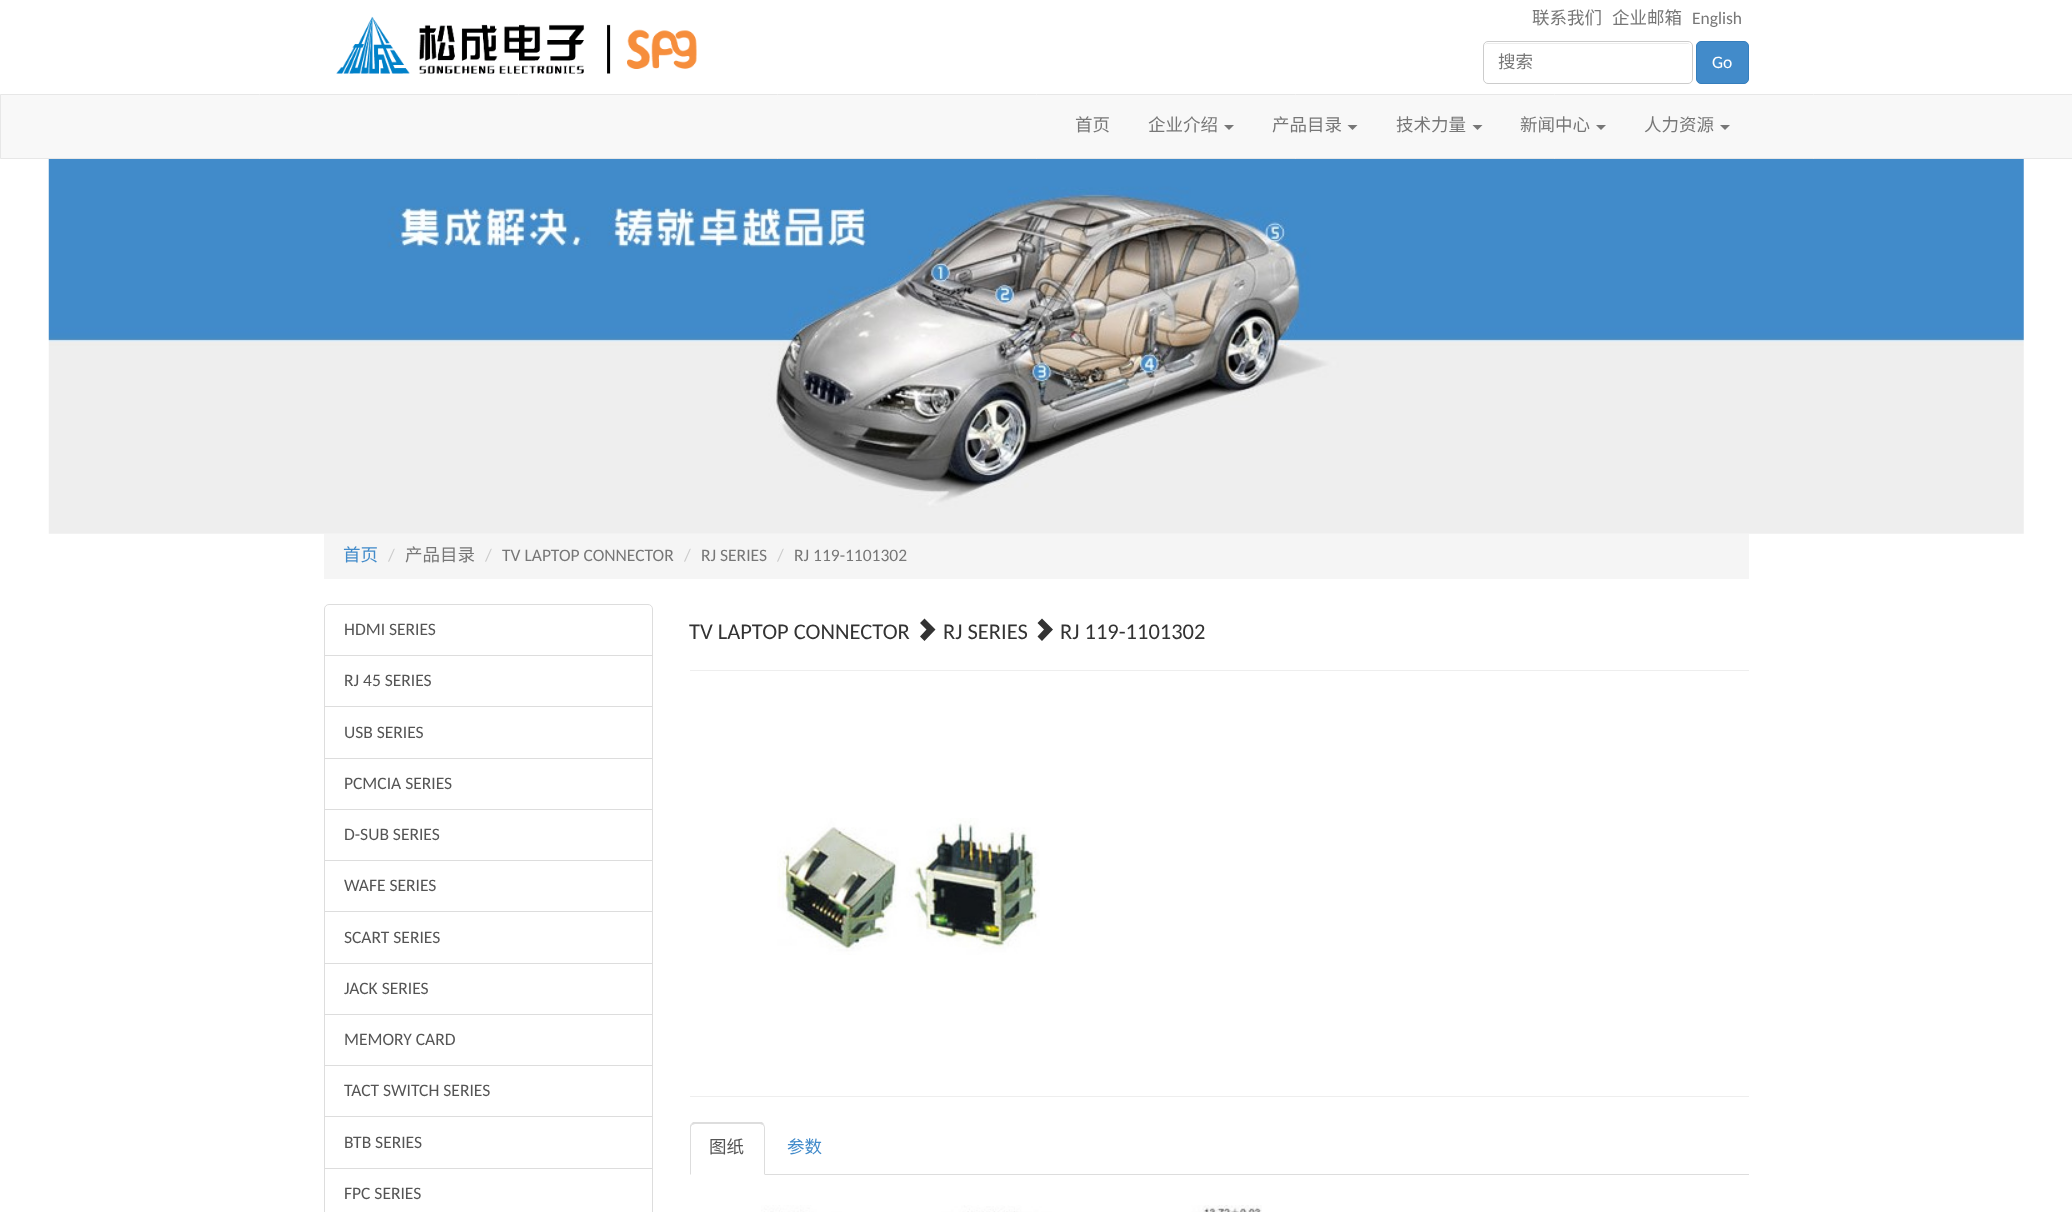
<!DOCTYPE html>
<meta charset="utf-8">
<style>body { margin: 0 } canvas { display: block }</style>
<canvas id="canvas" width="2072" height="1212"></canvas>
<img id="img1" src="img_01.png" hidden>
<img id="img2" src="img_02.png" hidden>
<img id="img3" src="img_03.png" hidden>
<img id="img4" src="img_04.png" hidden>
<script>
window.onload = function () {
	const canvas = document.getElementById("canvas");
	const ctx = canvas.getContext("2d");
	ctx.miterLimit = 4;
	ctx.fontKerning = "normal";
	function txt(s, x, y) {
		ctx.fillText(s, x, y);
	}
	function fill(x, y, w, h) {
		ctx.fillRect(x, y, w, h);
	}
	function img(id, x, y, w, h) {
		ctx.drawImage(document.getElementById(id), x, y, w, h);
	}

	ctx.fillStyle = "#FFFFFF";
	fill(0, 0, 2072, 1212);
	img("img1", 336, 16, 361, 58);
	ctx.fillStyle = "#ECECEC";
	ctx.beginPath();
	ctx.moveTo(1488, 44);
	ctx.lineTo(1688, 44);
	ctx.bezierCurveTo(1690, 44, 1691, 45, 1691, 48);
	ctx.lineTo(1691, 47);
	ctx.bezierCurveTo(1691, 45, 1689, 43, 1687, 43);
	ctx.lineTo(1488, 43);
	ctx.bezierCurveTo(1486, 43, 1484, 45, 1484, 47);
	ctx.lineTo(1484, 48);
	ctx.bezierCurveTo(1484, 45, 1485, 44, 1488, 44);
	ctx.closePath();
	ctx.fill();
	ctx.beginPath();
	ctx.roundRect(1483.5, 41.5, 209, 42, 4.5);
	ctx.strokeStyle = "#CCCCCC";
	ctx.stroke();
	ctx.fillStyle = "#428BCA";
	ctx.beginPath();
	ctx.roundRect(1696.5, 41.5, 52, 42, 4.5);
	ctx.fill();
	ctx.strokeStyle = "#357EBD";
	ctx.stroke();
	ctx.fillStyle = "#F8F8F8";
	ctx.beginPath();
	ctx.rect(0.5, 94.5, 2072, 64);
	ctx.fill();
	ctx.strokeStyle = "#E7E7E7";
	ctx.stroke();
	ctx.fillStyle = "#777777";
	ctx.beginPath();
	ctx.moveTo(1224, 125);
	ctx.lineTo(1234, 125);
	ctx.lineTo(1229, 130);
	ctx.closePath();
	ctx.fill();
	ctx.beginPath();
	ctx.moveTo(1347.5, 125);
	ctx.lineTo(1357.5, 125);
	ctx.lineTo(1352.5, 130);
	ctx.closePath();
	ctx.fill();
	ctx.beginPath();
	ctx.moveTo(1472.5, 125);
	ctx.lineTo(1482.5, 125);
	ctx.lineTo(1477.5, 130);
	ctx.closePath();
	ctx.fill();
	ctx.beginPath();
	ctx.moveTo(1596, 125);
	ctx.lineTo(1606, 125);
	ctx.lineTo(1601, 130);
	ctx.closePath();
	ctx.fill();
	ctx.beginPath();
	ctx.moveTo(1720, 125);
	ctx.lineTo(1730, 125);
	ctx.lineTo(1725, 130);
	ctx.closePath();
	ctx.fill();
	img("img2", 48, 159, 1976, 375);
	ctx.fillStyle = "#F5F5F5";
	fill(324, 534, 1425, 45);
	ctx.beginPath();
	ctx.roundRect(324.5, 604.5, 328, 51, [4.5, 4.5, 0, 0]);
	ctx.strokeStyle = "#DDDDDD";
	ctx.stroke();
	ctx.strokeRect(324.5, 655.5, 328, 52);
	ctx.fillStyle = "#FFFFFF";
	fill(325, 707, 327, 1);
	ctx.strokeRect(324.5, 706.5, 328, 52);
	ctx.strokeRect(324.5, 758.5, 328, 51);
	ctx.strokeRect(324.5, 809.5, 328, 51);
	ctx.strokeRect(324.5, 860.5, 328, 52);
	fill(325, 912, 327, 1);
	ctx.strokeRect(324.5, 911.5, 328, 52);
	ctx.strokeRect(324.5, 963.5, 328, 51);
	ctx.strokeRect(324.5, 1014.5, 328, 51);
	ctx.strokeRect(324.5, 1065.5, 328, 52);
	fill(325, 1117, 327, 1);
	ctx.strokeRect(324.5, 1116.5, 328, 52);
	ctx.strokeRect(324.5, 1168.5, 328, 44);
	ctx.fillStyle = "#333333";
	ctx.beginPath();
	ctx.moveTo(920, 636.5);
	ctx.lineTo(926.5, 629.5);
	ctx.lineTo(920, 623);
	ctx.lineTo(924.5, 618.5);
	ctx.lineTo(935.5, 629.5);
	ctx.lineTo(924.5, 641);
	ctx.closePath();
	ctx.fill();
	ctx.beginPath();
	ctx.moveTo(1037.5, 636.5);
	ctx.lineTo(1044, 629.5);
	ctx.lineTo(1037.5, 623);
	ctx.lineTo(1042, 618.5);
	ctx.lineTo(1053, 629.5);
	ctx.lineTo(1042, 641);
	ctx.closePath();
	ctx.fill();
	ctx.fillStyle = "#EEEEEE";
	fill(690, 670, 1059, 1);
	img("img3", 777, 818, 263, 137);
	fill(690, 1096, 1059, 1);
	ctx.fillStyle = "#DDDDDD";
	fill(765, 1174, 984, 1);
	ctx.beginPath();
	ctx.moveTo(695, 1124);
	ctx.lineTo(692, 1125);
	ctx.lineTo(691, 1124);
	ctx.lineTo(693, 1122);
	ctx.lineTo(762, 1122);
	ctx.lineTo(764, 1124);
	ctx.lineTo(763, 1125);
	ctx.lineTo(760, 1124);
	ctx.closePath();
	ctx.fill();
	ctx.beginPath();
	ctx.moveTo(765, 1175);
	ctx.lineTo(765, 1128);
	ctx.bezierCurveTo(765, 1126, 764, 1125, 764, 1124);
	ctx.lineTo(763, 1125);
	ctx.lineTo(764, 1127);
	ctx.lineTo(764, 1174);
	ctx.closePath();
	ctx.fill();
	ctx.beginPath();
	ctx.moveTo(690, 1175);
	ctx.lineTo(691, 1174);
	ctx.lineTo(691, 1127);
	ctx.lineTo(692, 1125);
	ctx.lineTo(691, 1124);
	ctx.bezierCurveTo(690, 1125, 690, 1126, 690, 1128);
	ctx.closePath();
	ctx.fill();
	img("img4", 761, 1205, 501, 7);
	ctx.font = "17.5px Noto Sans CJK SC";
	ctx.fillStyle = "#777777";
	txt("联系我们", 1532, 24);
	txt("企业邮箱", 1612, 24);
	ctx.font = "17.5px Carlito";
	txt("English", 1692, 24);
	ctx.font = "17.5px Noto Sans CJK SC";
	txt("搜索", 1498, 68);
	ctx.font = "17.5px Carlito";
	ctx.fillStyle = "#FFFFFF";
	txt("Go", 1712, 68);
	ctx.font = "17.5px Noto Sans CJK SC";
	ctx.fillStyle = "#777777";
	txt("首页", 1075, 131);
	txt("企业介绍", 1148, 131);
	txt("产品目录", 1272, 131);
	txt("技术力量", 1396, 131);
	txt("新闻中心", 1520, 131);
	txt("人力资源", 1644, 131);
	ctx.fillStyle = "#428BCA";
	txt("首页", 343, 561);
	ctx.font = "17.5px Carlito";
	ctx.fillStyle = "#CCCCCC";
	txt("/", 388, 561);
	ctx.font = "17.5px Noto Sans CJK SC";
	ctx.fillStyle = "#777777";
	txt("产品目录", 405, 561);
	ctx.font = "17.5px Carlito";
	ctx.fillStyle = "#CCCCCC";
	txt("/", 485, 561);
	ctx.fillStyle = "#777777";
	txt("TV LAPTOP CONNECTOR", 502, 561);
	ctx.fillStyle = "#CCCCCC";
	txt("/", 684, 561);
	ctx.fillStyle = "#777777";
	txt("RJ SERIES", 701, 561);
	ctx.fillStyle = "#CCCCCC";
	txt("/", 777, 561);
	ctx.fillStyle = "#777777";
	txt("RJ 119-1101302", 794, 561);
	ctx.fillStyle = "#555555";
	txt("HDMI SERIES", 344, 635);
	txt("RJ 45 SERIES", 344, 686);
	txt("USB SERIES", 344, 738);
	txt("PCMCIA SERIES", 344, 789);
	txt("D-SUB SERIES", 344, 840);
	txt("WAFE SERIES", 344, 891);
	txt("SCART SERIES", 344, 943);
	txt("JACK SERIES", 344, 994);
	txt("MEMORY CARD", 344, 1045);
	txt("TACT SWITCH SERIES", 344, 1096);
	txt("BTB SERIES", 344, 1148);
	txt("FPC SERIES", 344, 1199);
	ctx.font = "22.5px Carlito";
	ctx.fillStyle = "#333333";
	txt("TV LAPTOP CONNECTOR", 689, 639);
	txt("RJ SERIES", 943, 639);
	txt("RJ 119-1101302", 1060, 639);
	ctx.font = "17.5px Noto Sans CJK SC";
	ctx.fillStyle = "#555555";
	txt("图纸", 709, 1153);
	ctx.fillStyle = "#428BCA";
	txt("参数", 787, 1153);
};
</script>
